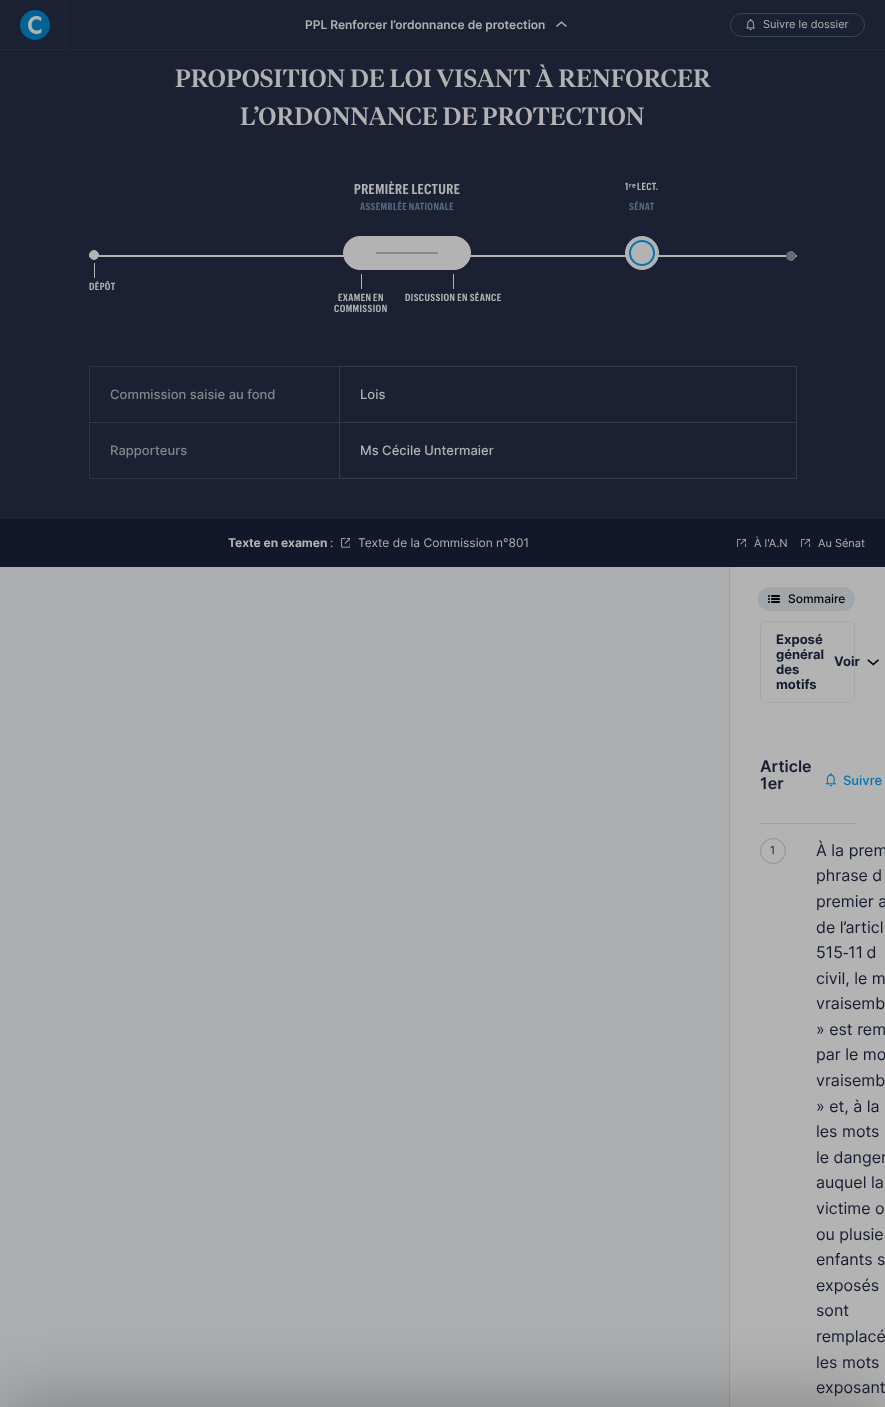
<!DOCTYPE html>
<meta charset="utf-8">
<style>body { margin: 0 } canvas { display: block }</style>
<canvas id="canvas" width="885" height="1407"></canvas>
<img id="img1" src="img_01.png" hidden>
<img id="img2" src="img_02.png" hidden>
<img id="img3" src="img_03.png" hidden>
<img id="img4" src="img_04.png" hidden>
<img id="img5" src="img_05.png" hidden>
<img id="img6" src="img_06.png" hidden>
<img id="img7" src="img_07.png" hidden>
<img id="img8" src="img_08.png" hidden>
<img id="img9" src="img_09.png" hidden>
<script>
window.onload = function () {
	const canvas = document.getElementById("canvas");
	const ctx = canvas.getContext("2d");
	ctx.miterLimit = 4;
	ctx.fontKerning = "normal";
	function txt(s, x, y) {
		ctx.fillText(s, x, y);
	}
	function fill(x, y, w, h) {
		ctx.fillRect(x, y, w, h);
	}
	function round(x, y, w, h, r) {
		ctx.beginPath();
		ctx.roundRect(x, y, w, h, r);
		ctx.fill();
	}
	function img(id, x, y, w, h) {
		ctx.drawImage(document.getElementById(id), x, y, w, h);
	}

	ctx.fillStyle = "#B3B3B3";
	fill(0, 0, 885, 1407);
	ctx.fillStyle = "#1B2133";
	fill(0, 0, 885, 519);
	ctx.fillStyle = "#2B3345";
	fill(89, 366, 1, 57);
	fill(89, 366, 251, 1);
	ctx.fillStyle = "#30394B";
	fill(89, 366, 1, 1);
	ctx.fillStyle = "#2B3345";
	fill(89, 478, 251, 1);
	ctx.fillStyle = "#30394B";
	fill(89, 422, 251, 1);
	ctx.fillStyle = "#212A3D";
	fill(0, 49, 885, 1);
	ctx.fillStyle = "#016396";
	ctx.beginPath();
	ctx.arc(35, 25, 15, 0, Math.PI * 2);
	ctx.fill();
	img("img1", 28, 16, 14, 18);
	ctx.fillStyle = "#212A3D";
	fill(65, 0, 1, 49);
	img("img2", 556, 21, 11, 6);
	ctx.beginPath();
	ctx.roundRect(730.5, 13.5, 134, 23, 11.5);
	ctx.strokeStyle = "#354854";
	ctx.stroke();
	img("img3", 746, 19, 9, 12);
	ctx.fillStyle = "#B3B3B3";
	fill(89, 255, 708, 2);
	ctx.beginPath();
	ctx.roundRect(343.5, 236.5, 127, 33, 16.5);
	ctx.fill();
	ctx.strokeStyle = "#B3B3B3";
	ctx.stroke();
	ctx.fillStyle = "#8A8B8D";
	fill(376, 252, 62, 2);
	ctx.fillStyle = "#B3B3B3";
	fill(361, 274, 1, 15);
	fill(453, 274, 1, 15);
	ctx.beginPath();
	ctx.arc(642, 253, 16.5, 0, Math.PI * 2);
	ctx.fill();
	ctx.stroke();
	img("img4", 629, 240, 26, 26);
	ctx.fillStyle = "#676A73";
	ctx.beginPath();
	ctx.arc(791, 256, 4.5, 0, Math.PI * 2);
	ctx.fill();
	ctx.strokeStyle = "#676A73";
	ctx.stroke();
	ctx.fillStyle = "#B3B3B3";
	ctx.beginPath();
	ctx.arc(94, 255, 4.5, 0, Math.PI * 2);
	ctx.fill();
	ctx.strokeStyle = "#B3B3B3";
	ctx.stroke();
	fill(94, 263, 1, 15);
	ctx.fillStyle = "#323B4D";
	fill(339, 366, 458, 1);
	fill(339, 422, 458, 1);
	fill(796, 422, 1, 57);
	fill(796, 366, 1, 57);
	fill(339, 478, 458, 1);
	fill(339, 422, 1, 57);
	fill(339, 366, 1, 57);
	ctx.fillStyle = "#2B3345";
	fill(89, 422, 1, 57);
	ctx.fillStyle = "#313A4C";
	fill(89, 422, 1, 1);
	ctx.fillStyle = "#12182A";
	fill(0, 519, 885, 48);
	img("img5", 341, 538, 9, 10);
	img("img6", 737, 539, 9, 8);
	img("img6", 801, 539, 9, 8);
	ctx.fillStyle = "#ACAEB0";
	fill(0, 567, 729, 840);
	ctx.fillStyle = "#97A2AC";
	fill(729, 567, 1, 840);
	ctx.fillStyle = "#A1A6AA";
	round(758, 587, 97, 24, 12);
	img("img7", 768, 595, 12, 8);
	ctx.beginPath();
	ctx.roundRect(760.5, 621.5, 94, 81, 4.5);
	ctx.strokeStyle = "#A7A8A9";
	ctx.stroke();
	img("img8", 867, 659, 12, 7);
	ctx.fillStyle = "#97A2AC";
	fill(760, 823, 95, 1);
	img("img9", 825, 773, 11, 14);
	ctx.beginPath();
	ctx.arc(773, 851, 12.5, 0, Math.PI * 2);
	ctx.strokeStyle = "#8F8F8F";
	ctx.stroke();
	ctx.fillStyle = "rgba(0, 0, 0, 0.3)";
	ctx.filter = "blur(40px)";
	ctx.beginPath();
	ctx.rect(0, 1407, 885, 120);
	ctx.fill();
	ctx.filter = "none";
	ctx.font = "600 12px Inter";
	ctx.fillStyle = "#B2B2B2";
	txt("PPL Renforcer l’ordonnance de protection", 305, 29);
	ctx.font = "11px Inter";
	txt("Suivre le dossier", 763, 28);
	ctx.font = "500 25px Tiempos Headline";
	txt("PROPOSITION DE LOI VISANT À RENFORCER", 175, 87);
	txt("L’ORDONNANCE DE PROTECTION", 240, 125);
	ctx.letterSpacing = "0.4px";
	ctx.font = "600 14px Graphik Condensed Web";
	txt("PREMIÈRE LECTURE", 354, 194);
	ctx.font = "600 10px Graphik Condensed Web";
	ctx.fillStyle = "#546D82";
	txt("ASSEMBLÉE NATIONALE", 360, 210);
	ctx.fillStyle = "#B2B2B2";
	txt("EXAMEN EN", 338, 301);
	txt("COMMISSION", 334, 312);
	txt("DISCUSSION EN SÉANCE", 405, 301);
	txt("1", 625, 190);
	ctx.font = "bold 10px Liberation Sans";
	txt("ʳᵉ", 629, 190);
	ctx.font = "600 10px Graphik Condensed Web";
	txt("LECT.", 637, 190);
	ctx.fillStyle = "#546D82";
	txt("SÉNAT", 629, 210);
	ctx.fillStyle = "#B2B2B2";
	txt("DÉPÔT", 89, 290);
	ctx.letterSpacing = "0px";
	ctx.font = "500 13px Inter";
	ctx.fillStyle = "#85868C";
	txt("Commission saisie au fond", 110, 399);
	ctx.fillStyle = "#B2B2B2";
	txt("Lois", 360, 399);
	ctx.fillStyle = "#85868C";
	txt("Rapporteurs", 110, 455);
	ctx.fillStyle = "#B2B2B2";
	txt("Ms Cécile Untermaier", 360, 455);
	ctx.font = "bold 12px Inter";
	txt("Texte en examen", 228, 547);
	ctx.font = "12px Inter";
	txt(":", 330, 547);
	txt("Texte de la Commission n°801", 358, 547);
	ctx.font = "11px Inter";
	txt("À l'A.N", 754, 547);
	txt("Au Sénat", 818, 547);
	ctx.font = "500 12px Inter";
	ctx.fillStyle = "#000000";
	txt("Sommaire", 788, 603);
	ctx.font = "bold 13px Inter";
	ctx.fillStyle = "#161C30";
	txt("Exposé", 776, 644);
	txt("général", 776, 659);
	txt("Voir", 834, 666);
	txt("des", 776, 674);
	txt("motifs", 776, 689);
	ctx.font = "600 16px Inter";
	txt("Article", 760, 772);
	txt("1er", 760, 789);
	ctx.font = "500 13px Inter";
	ctx.fillStyle = "#0075B3";
	txt("Suivre", 843, 785);
	ctx.font = "11px Inter";
	ctx.fillStyle = "#161C30";
	txt("1", 770, 854);
	ctx.font = "16px Inter";
	txt("À la prem", 816, 856);
	txt("phrase d", 816, 881);
	txt("premier a", 816, 907);
	txt("de l’articl", 816, 933);
	ctx.wordSpacing = "-1px";
	txt("515‑11 d", 816, 958);
	ctx.wordSpacing = "0px";
	txt("civil, le m", 816, 984);
	txt("vraisemb", 816, 1009);
	txt("» est rem", 816, 1035);
	txt("par le mo", 816, 1060);
	txt("vraisemb", 816, 1086);
	txt("» et, à la", 816, 1112);
	txt("les mots", 816, 1137);
	txt("le danger", 816, 1163);
	txt("auquel la", 816, 1188);
	txt("victime o", 816, 1214);
	txt("ou plusie", 816, 1240);
	txt("enfants s", 816, 1265);
	txt("exposés", 816, 1291);
	txt("sont", 816, 1316);
	txt("remplacé", 816, 1342);
	txt("les mots", 816, 1368);
	txt("exposant", 816, 1393);
};
</script>
